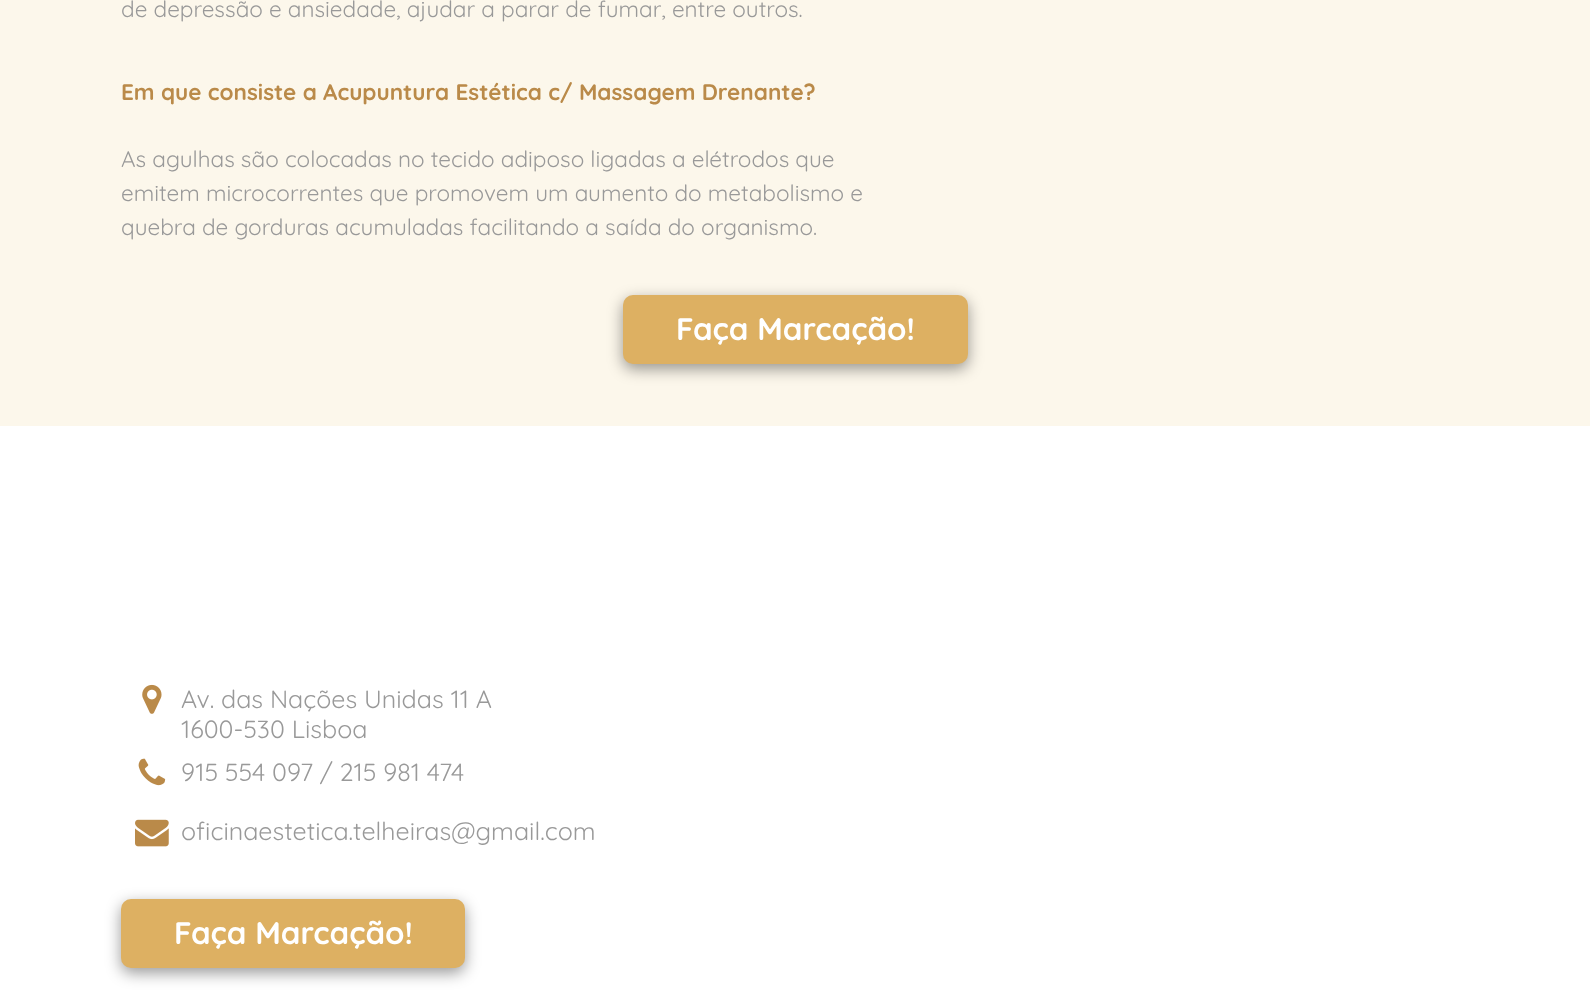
<!DOCTYPE html>
<meta charset="utf-8">
<style>body { margin: 0 } canvas { display: block }</style>
<canvas id="canvas" width="1590" height="992"></canvas>
<img id="img1" src="img_01.png" hidden>
<img id="img2" src="img_02.png" hidden>
<img id="img3" src="img_03.png" hidden>
<script>
window.onload = function () {
	const canvas = document.getElementById("canvas");
	const ctx = canvas.getContext("2d");
	ctx.miterLimit = 4;
	ctx.fontKerning = "normal";
	function txt(s, x, y) {
		ctx.fillText(s, x, y);
	}
	function fill(x, y, w, h) {
		ctx.fillRect(x, y, w, h);
	}
	function round(x, y, w, h, r) {
		ctx.beginPath();
		ctx.roundRect(x, y, w, h, r);
		ctx.fill();
	}
	function img(id, x, y, w, h) {
		ctx.drawImage(document.getElementById(id), x, y, w, h);
	}

	ctx.fillStyle = "#FFFFFF";
	fill(0, 0, 1590, 992);
	ctx.fillStyle = "#FCF7EB";
	fill(0, 0, 1590, 426);
	ctx.fillStyle = "rgba(0, 0, 0, 0.4)";
	ctx.filter = "blur(7.5px)";
	ctx.beginPath();
	ctx.roundRect(623, 300, 345, 69, 10);
	ctx.fill();
	ctx.filter = "none";
	ctx.fillStyle = "#DDB062";
	round(623, 295, 345, 69, 10);
	img("img1", 142, 684, 20, 30);
	img("img2", 138, 758, 28, 28);
	img("img3", 135, 819, 34, 28);
	ctx.fillStyle = "rgba(0, 0, 0, 0.4)";
	ctx.filter = "blur(7.5px)";
	ctx.beginPath();
	ctx.roundRect(121, 904, 344, 69, 10);
	ctx.fill();
	ctx.filter = "none";
	ctx.fillStyle = "#DDB062";
	round(121, 899, 344, 69, 10);
	ctx.font = "22.5px Quicksand";
	ctx.fillStyle = "#999999";
	txt("de depressão e ansiedade, ajudar a parar de fumar, entre outros.", 121, 17);
	ctx.font = "bold 22.5px Quicksand";
	ctx.fillStyle = "#BA8A49";
	txt("Em que consiste a Acupuntura Estética c/ Massagem Drenante?", 121, 100);
	ctx.font = "22.5px Quicksand";
	ctx.fillStyle = "#999999";
	txt("As agulhas são colocadas no tecido adiposo ligadas a elétrodos que", 121, 167);
	txt("emitem microcorrentes que promovem um aumento do metabolismo e", 121, 201);
	txt("quebra de gorduras acumuladas facilitando a saída do organismo.", 121, 235);
	ctx.font = "bold 31.25px Quicksand";
	ctx.fillStyle = "#FFFFFF";
	txt("Faça Marcação!", 676, 340);
	ctx.font = "25px Quicksand";
	ctx.fillStyle = "#999999";
	txt("Av. das Nações Unidas 11 A", 181, 708);
	txt("1600-530 Lisboa", 181, 738);
	txt("915 554 097 / 215 981 474", 181, 781);
	txt("oficinaestetica.telheiras@gmail.com", 181, 840);
	ctx.font = "bold 31.25px Quicksand";
	ctx.fillStyle = "#FFFFFF";
	txt("Faça Marcação!", 174, 944);
};
</script>
